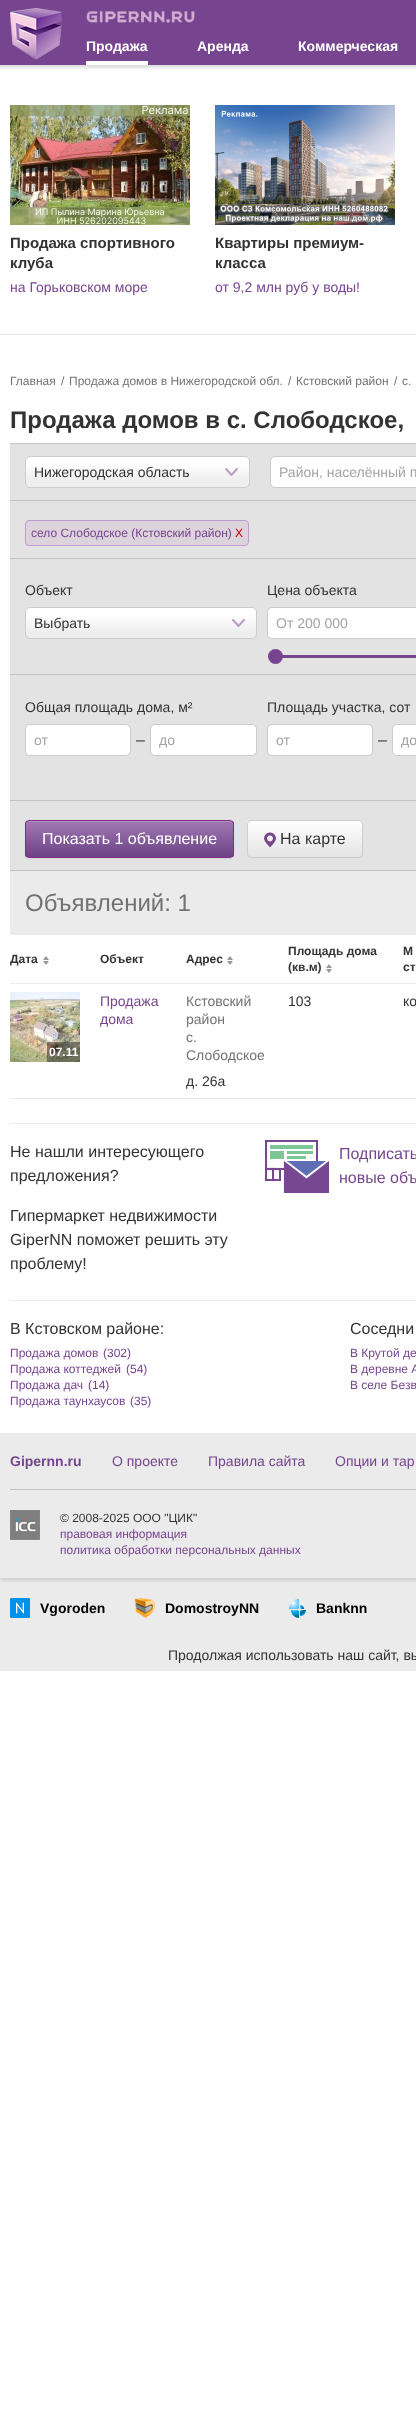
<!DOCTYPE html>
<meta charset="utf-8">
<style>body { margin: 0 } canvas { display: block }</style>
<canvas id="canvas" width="416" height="2409"></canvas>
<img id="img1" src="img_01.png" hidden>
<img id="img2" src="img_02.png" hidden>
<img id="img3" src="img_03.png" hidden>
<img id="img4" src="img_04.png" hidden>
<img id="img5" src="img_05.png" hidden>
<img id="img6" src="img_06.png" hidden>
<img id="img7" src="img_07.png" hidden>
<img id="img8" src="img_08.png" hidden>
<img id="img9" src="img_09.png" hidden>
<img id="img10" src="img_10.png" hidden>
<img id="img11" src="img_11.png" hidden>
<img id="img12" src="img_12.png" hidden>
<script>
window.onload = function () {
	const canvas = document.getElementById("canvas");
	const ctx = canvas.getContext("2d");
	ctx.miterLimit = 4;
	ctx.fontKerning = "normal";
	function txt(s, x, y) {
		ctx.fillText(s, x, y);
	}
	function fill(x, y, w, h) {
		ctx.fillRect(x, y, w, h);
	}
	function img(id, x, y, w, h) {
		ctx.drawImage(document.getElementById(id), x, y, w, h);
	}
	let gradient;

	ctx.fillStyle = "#FFFFFF";
	fill(0, 0, 416, 2409);
	ctx.fillStyle = "rgba(1, 1, 1, 0.13)";
	ctx.filter = "blur(1.5px)";
	ctx.beginPath();
	ctx.rect(-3, -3, 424, 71);
	ctx.fill();
	ctx.filter = "none";
	ctx.fillStyle = "#77458F";
	fill(0, 0, 416, 65);
	img("img1", 10, 8, 52, 52);
	img("img2", 86, 11, 109, 12);
	ctx.fillStyle = "#FFFFFF";
	fill(86, 61, 62, 4);
	ctx.fillStyle = "#EBEBEB";
	fill(0, 334, 416, 1);
	img("img3", 10, 105, 180, 120);
	img("img4", 215, 105, 180, 120);
	ctx.fillStyle = "#E3E3E3";
	fill(10, 444, 406, 426);
	ctx.fillStyle = "#C2C2C2";
	fill(10, 443, 406, 1);
	ctx.save();
	ctx.beginPath();
	ctx.roundRect(25, 456, 225, 32, 5);
	ctx.clip();
	gradient = ctx.createLinearGradient(138, 487, 138, 457);
	gradient.addColorStop(0.2, "#EEEEEE");
	gradient.addColorStop(0.8, "#FFFFFF");
	ctx.fillStyle = gradient;
	fill(26, 457, 223, 30);
	ctx.restore();
	ctx.beginPath();
	ctx.moveTo(237, 469);
	ctx.lineTo(231.5, 475);
	ctx.lineTo(226, 469);
	ctx.strokeStyle = "#B89EC4";
	ctx.lineWidth = 2;
	ctx.lineCap = "round";
	ctx.lineJoin = "round";
	ctx.stroke();
	ctx.beginPath();
	ctx.roundRect(25.5, 456.5, 224, 31, 4.5);
	ctx.strokeStyle = "#CCCCCC";
	ctx.lineWidth = 1;
	ctx.lineJoin = "miter";
	ctx.stroke();
	ctx.fillStyle = "#FFFFFF";
	ctx.beginPath();
	ctx.roundRect(270.5, 456.5, 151, 31, 4.5);
	ctx.fill();
	ctx.stroke();
	ctx.fillStyle = "#C2C2C2";
	fill(10, 500, 406, 1);
	ctx.fillStyle = "#DCD3DC";
	ctx.beginPath();
	ctx.roundRect(25.5, 520.5, 223, 25, 3.5);
	ctx.fill();
	ctx.strokeStyle = "#BF9DD0";
	ctx.stroke();
	ctx.fillStyle = "#C2C2C2";
	fill(10, 558, 406, 1);
	ctx.save();
	ctx.beginPath();
	ctx.roundRect(25, 607, 232, 32, 5);
	ctx.clip();
	gradient = ctx.createLinearGradient(141, 638, 141, 608);
	gradient.addColorStop(0.2, "#EEEEEE");
	gradient.addColorStop(0.8, "#FFFFFF");
	ctx.fillStyle = gradient;
	fill(26, 608, 230, 30);
	ctx.restore();
	ctx.beginPath();
	ctx.moveTo(244, 620);
	ctx.lineTo(238.5, 626);
	ctx.lineTo(233, 620);
	ctx.strokeStyle = "#B89EC4";
	ctx.lineWidth = 2;
	ctx.lineJoin = "round";
	ctx.stroke();
	ctx.beginPath();
	ctx.roundRect(25.5, 607.5, 231, 31, 4.5);
	ctx.strokeStyle = "#CCCCCC";
	ctx.lineWidth = 1;
	ctx.lineJoin = "miter";
	ctx.stroke();
	ctx.fillStyle = "#FFFFFF";
	ctx.beginPath();
	ctx.moveTo(272, 607.5);
	ctx.lineTo(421.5, 607.5);
	ctx.lineTo(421.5, 638.5);
	ctx.lineTo(272, 638.5);
	ctx.bezierCurveTo(269.5, 638.5, 267.5, 636.5, 267.5, 634);
	ctx.lineTo(267.5, 612);
	ctx.bezierCurveTo(267.5, 609.5, 269.5, 607.5, 272, 607.5);
	ctx.closePath();
	ctx.fill();
	ctx.stroke();
	ctx.strokeStyle = "#77458F";
	ctx.strokeRect(274.5, 655.5, 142, 2);
	ctx.fillStyle = "#77458F";
	fill(275, 656, 141, 1);
	ctx.beginPath();
	ctx.arc(275.5, 656.5, 7.5, 0, Math.PI * 2);
	ctx.fill();
	ctx.fillStyle = "#C2C2C2";
	fill(10, 674, 406, 1);
	ctx.fillStyle = "#FFFFFF";
	ctx.beginPath();
	ctx.roundRect(25.5, 724.5, 105, 31, 4.5);
	ctx.fill();
	ctx.strokeStyle = "#CCCCCC";
	ctx.stroke();
	ctx.beginPath();
	ctx.roundRect(150.5, 724.5, 106, 31, 4.5);
	ctx.fill();
	ctx.stroke();
	ctx.beginPath();
	ctx.roundRect(267.5, 724.5, 105, 31, 4.5);
	ctx.fill();
	ctx.stroke();
	ctx.beginPath();
	ctx.roundRect(392.5, 724.5, 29, 31, 4.5);
	ctx.fill();
	ctx.stroke();
	ctx.fillStyle = "#C2C2C2";
	fill(10, 800, 406, 1);
	ctx.fillStyle = "rgba(0, 0, 0, 0.05)";
	ctx.filter = "blur(1px)";
	ctx.beginPath();
	ctx.roundRect(25, 821, 209, 38, 4);
	ctx.fill();
	ctx.filter = "none";
	ctx.save();
	ctx.beginPath();
	ctx.roundRect(25, 820, 209, 38, 4);
	ctx.clip();
	gradient = ctx.createLinearGradient(130, 821, 130, 857);
	gradient.addColorStop(0, "#9F79B3");
	gradient.addColorStop(1, "#6C4285");
	ctx.fillStyle = gradient;
	fill(25, 821, 209, 36);
	ctx.restore();
	ctx.fillStyle = "#B193C1";
	ctx.beginPath();
	ctx.moveTo(29, 822);
	ctx.lineTo(230, 822);
	ctx.bezierCurveTo(232, 822, 233, 823, 233, 825);
	ctx.bezierCurveTo(233, 823, 232, 821, 230, 821);
	ctx.lineTo(28, 821);
	ctx.bezierCurveTo(26, 822, 26, 823, 26, 825);
	ctx.bezierCurveTo(26, 823, 27, 822, 29, 822);
	ctx.closePath();
	ctx.fill();
	ctx.beginPath();
	ctx.roundRect(25.5, 820.5, 208, 37, 3.5);
	ctx.strokeStyle = "#832E85";
	ctx.stroke();
	ctx.save();
	ctx.beginPath();
	ctx.roundRect(247, 820, 116, 38, 4);
	ctx.clip();
	gradient = ctx.createLinearGradient(305, 821, 305, 857);
	gradient.addColorStop(0, "#FFFFFF");
	gradient.addColorStop(1, "#E4E4E4");
	ctx.fillStyle = gradient;
	fill(247, 821, 116, 36);
	ctx.restore();
	ctx.beginPath();
	ctx.roundRect(247.5, 820.5, 115, 37, 3.5);
	ctx.strokeStyle = "#CECECE";
	ctx.stroke();
	img("img5", 264, 832, 12, 16);
	ctx.fillStyle = "#EBEBEB";
	fill(10, 871, 406, 64);
	ctx.fillStyle = "#C2C2C2";
	fill(10, 870, 406, 1);
	ctx.fillStyle = "#EBEBEB";
	fill(10, 983, 406, 1);
	img("img6", 43, 956, 6, 9);
	img("img6", 227, 956, 6, 9);
	img("img6", 326, 964, 6, 9);
	fill(10, 1098, 406, 1);
	img("img7", 10, 992, 70, 70);
	ctx.fillStyle = "rgba(0, 0, 0, 0.4)";
	fill(47, 1042, 33, 20);
	ctx.fillStyle = "#EBEBEB";
	fill(10, 1123, 406, 1);
	img("img8", 265, 1140, 64, 53);
	fill(10, 1300, 406, 1);
	fill(0, 1433, 416, 238);
	ctx.save();
	ctx.beginPath();
	ctx.rect(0, 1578, 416, 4);
	ctx.clip();
	ctx.fillStyle = "rgba(0, 0, 0, 0.1)";
	ctx.filter = "blur(1.5px)";
	ctx.beginPath();
	ctx.rect(0, 1436, 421, 145);
	ctx.fill();
	ctx.filter = "none";
	ctx.restore();
	ctx.fillStyle = "#C2C2C2";
	fill(10, 1489, 406, 1);
	img("img9", 10, 1510, 30, 30);
	img("img10", 10, 1598, 20, 20);
	img("img11", 135, 1598, 20, 20);
	img("img12", 289, 1599, 17, 19);
	ctx.font = "bold 14px Liberation Sans";
	ctx.fillStyle = "#FFFFFF";
	txt("Продажа", 86, 51);
	txt("Аренда", 197, 51);
	txt("Коммерческая", 298, 51);
	ctx.font = "bold 15px Liberation Sans";
	ctx.fillStyle = "#333333";
	txt("Продажа спортивного", 10, 248);
	txt("клуба", 10, 268);
	ctx.font = "14px Liberation Sans";
	ctx.fillStyle = "#77458F";
	txt("на Горьковском море", 10, 292);
	ctx.font = "bold 15px Liberation Sans";
	ctx.fillStyle = "#333333";
	txt("Квартиры премиум-", 215, 248);
	txt("класса", 215, 268);
	ctx.font = "14px Liberation Sans";
	ctx.fillStyle = "#77458F";
	txt("от 9,2 млн руб у воды!", 215, 292);
	ctx.font = "12px Liberation Sans";
	ctx.fillStyle = "#727272";
	txt("Главная", 10, 385);
	txt("/", 61, 385);
	txt("Продажа домов в Нижегородской обл.", 69, 385);
	txt("/", 288, 385);
	txt("Кстовский район", 296, 385);
	txt("/", 394, 385);
	txt("с.", 402, 385);
	ctx.font = "bold 24px Liberation Sans";
	ctx.fillStyle = "#333333";
	txt("Продажа домов в с. Слободское,", 10, 428);
	ctx.font = "14px Liberation Sans";
	txt("Нижегородская область", 34, 477);
	ctx.fillStyle = "#A4A4A4";
	txt("Район, населённый п", 279, 477);
	ctx.font = "12px Liberation Sans";
	ctx.fillStyle = "#77458F";
	txt("село Слободское (Кстовский район)", 31, 537);
	ctx.fillStyle = "#CC0000";
	txt("X", 235, 537);
	ctx.font = "14px Liberation Sans";
	ctx.fillStyle = "#333333";
	txt("Объект", 25, 595);
	txt("Выбрать", 34, 628);
	txt("Цена объекта", 267, 595);
	ctx.fillStyle = "#A4A4A4";
	txt("От 200 000", 276, 628);
	ctx.fillStyle = "#333333";
	txt("Общая площадь дома, м²", 25, 712);
	ctx.fillStyle = "#A4A4A4";
	txt("от", 34, 745);
	ctx.font = "16px Liberation Sans";
	ctx.fillStyle = "#333333";
	txt("–", 136, 745);
	ctx.font = "14px Liberation Sans";
	ctx.fillStyle = "#A4A4A4";
	txt("до", 159, 745);
	ctx.fillStyle = "#333333";
	txt("Площадь участка, сот", 267, 712);
	ctx.fillStyle = "#A4A4A4";
	txt("от", 276, 745);
	ctx.font = "16px Liberation Sans";
	ctx.fillStyle = "#333333";
	txt("–", 378, 745);
	ctx.font = "14px Liberation Sans";
	ctx.fillStyle = "#A4A4A4";
	txt("до", 401, 745);
	ctx.font = "16px Liberation Sans";
	ctx.fillStyle = "#FFFFFF";
	txt("Показать 1 объявление", 42, 844);
	ctx.fillStyle = "#333333";
	txt("На карте", 280, 844);
	ctx.font = "24px Liberation Sans";
	ctx.fillStyle = "#727272";
	txt("Объявлений: 1", 25, 911);
	ctx.font = "bold 12px Liberation Sans";
	ctx.fillStyle = "#333333";
	txt("Дата", 10, 963);
	txt("Объект", 100, 963);
	txt("Адрес", 186, 963);
	txt("Площадь дома", 288, 955);
	txt("(кв.м)", 288, 971);
	txt("М", 403, 955);
	txt("ст", 403, 971);
	ctx.font = "14px Liberation Sans";
	ctx.fillStyle = "#77458F";
	txt("Продажа", 100, 1006);
	txt("дома", 100, 1024);
	ctx.fillStyle = "#727272";
	txt("Кстовский", 186, 1006);
	txt("район", 186, 1024);
	txt("с.", 186, 1042);
	txt("Слободское", 186, 1060);
	ctx.fillStyle = "#333333";
	txt("д. 26а", 186, 1086);
	txt("103", 288, 1006);
	txt("ко", 403, 1006);
	ctx.font = "bold 12px Liberation Sans";
	ctx.fillStyle = "#FFFFFF";
	txt("07.11", 49, 1056);
	ctx.font = "16px Liberation Sans";
	ctx.fillStyle = "#333333";
	txt("Не нашли интересующего", 10, 1157);
	txt("предложения?", 10, 1181);
	txt("Гипермаркет недвижимости", 10, 1221);
	txt("GiperNN поможет решить эту", 10, 1245);
	txt("проблему!", 10, 1269);
	ctx.fillStyle = "#77458F";
	txt("Подписать", 339, 1159);
	txt("новые объ", 339, 1183);
	ctx.fillStyle = "#333333";
	txt("В Кстовском районе:", 10, 1334);
	ctx.font = "12px Liberation Sans";
	ctx.fillStyle = "#77458F";
	txt("Продажа домов", 10, 1357);
	txt("(302)", 103, 1357);
	txt("Продажа коттеджей", 10, 1373);
	txt("(54)", 126, 1373);
	txt("Продажа дач", 10, 1389);
	txt("(14)", 88, 1389);
	txt("Продажа таунхаусов", 10, 1405);
	txt("(35)", 130, 1405);
	ctx.font = "16px Liberation Sans";
	ctx.fillStyle = "#333333";
	txt("Соседни", 350, 1334);
	ctx.font = "12px Liberation Sans";
	ctx.fillStyle = "#77458F";
	txt("В Крутой де", 350, 1357);
	txt("В деревне А", 350, 1373);
	txt("В селе Безв", 350, 1389);
	ctx.font = "bold 14px Liberation Sans";
	txt("Gipernn.ru", 10, 1466);
	ctx.font = "14px Liberation Sans";
	txt("О проекте", 112, 1466);
	txt("Правила сайта", 208, 1466);
	txt("Опции и тар", 335, 1466);
	ctx.font = "12px Liberation Sans";
	ctx.fillStyle = "#333333";
	txt("© 2008-2025 ООО \"ЦИК\"", 60, 1522);
	ctx.fillStyle = "#77458F";
	txt("правовая информация", 60, 1538);
	txt("политика обработки персональных данных", 60, 1554);
	ctx.font = "bold 14px Liberation Sans";
	ctx.fillStyle = "#000000";
	txt("Vgoroden", 40, 1613);
	txt("DomostroyNN", 165, 1613);
	txt("Banknn", 316, 1613);
	ctx.font = "14px Liberation Sans";
	ctx.fillStyle = "#333333";
	txt("Продолжая использовать наш сайт, вы", 168, 1660);
};
</script>
